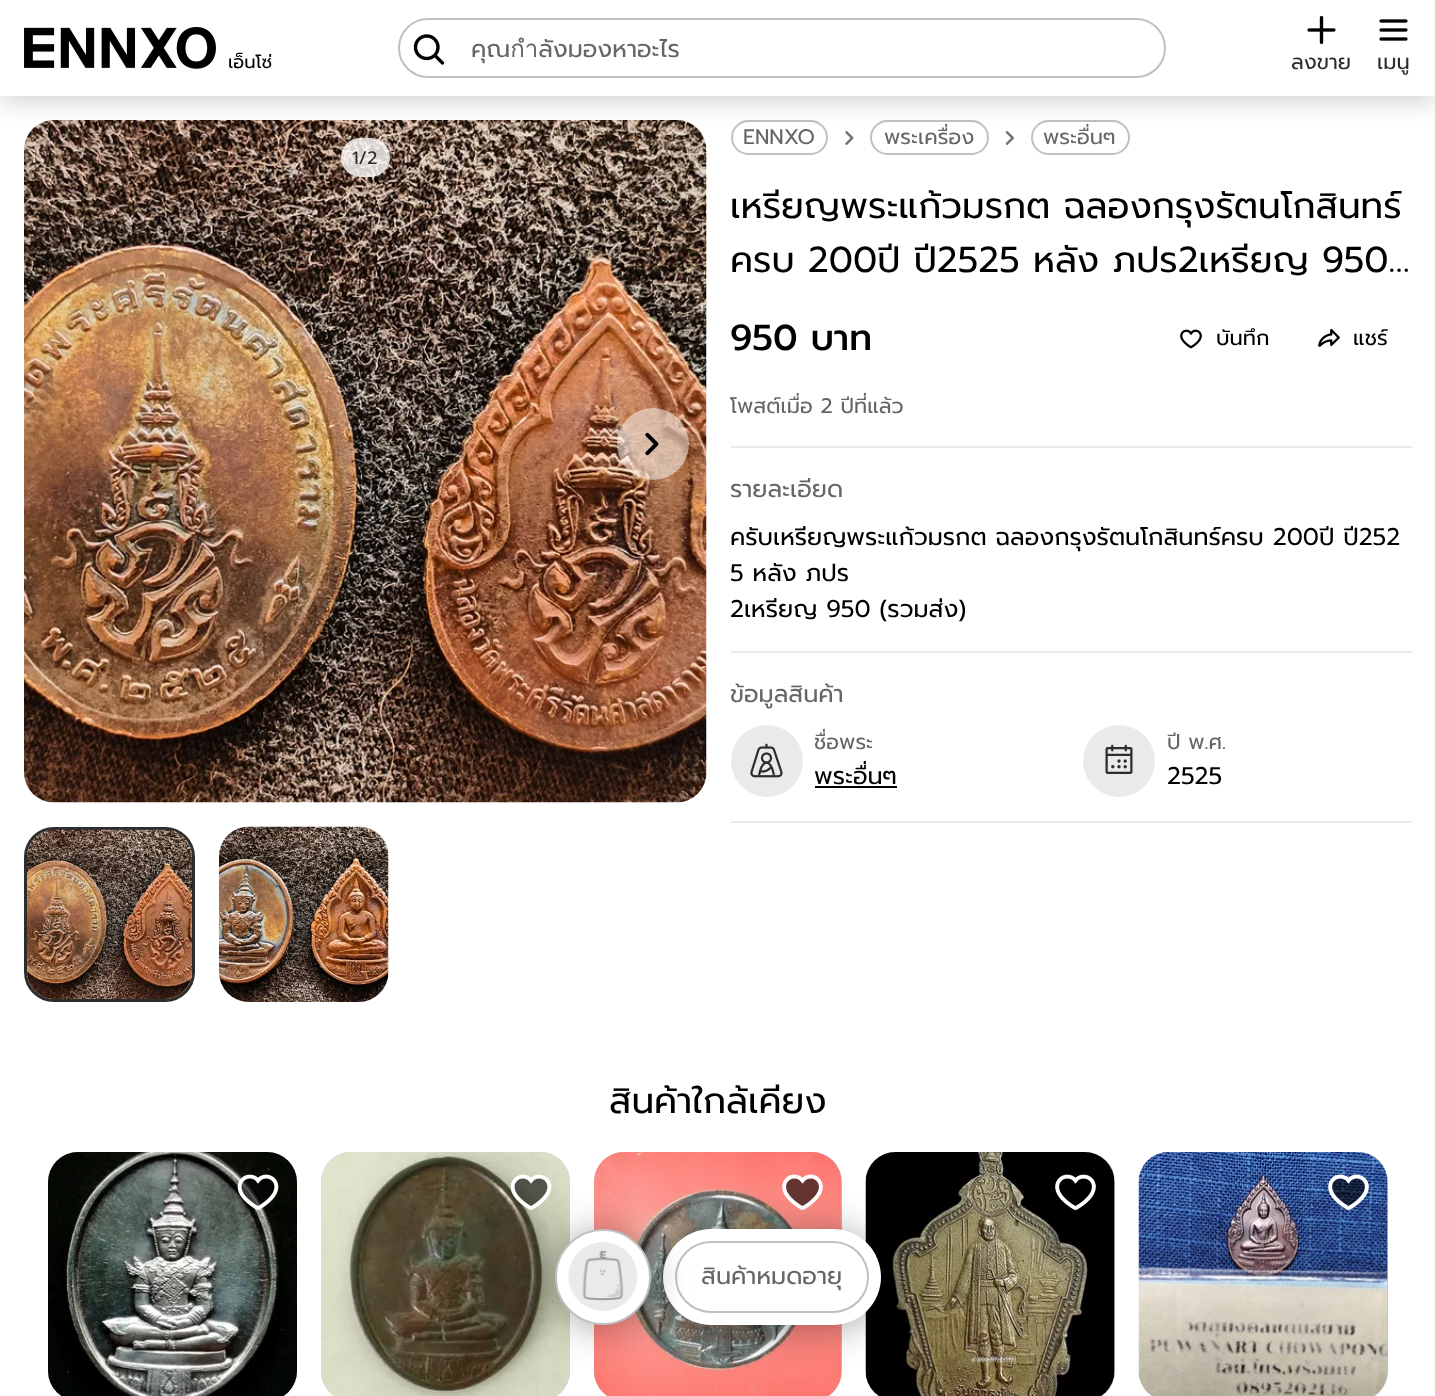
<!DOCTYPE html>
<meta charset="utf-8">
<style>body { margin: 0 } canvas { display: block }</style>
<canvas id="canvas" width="1435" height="1396"></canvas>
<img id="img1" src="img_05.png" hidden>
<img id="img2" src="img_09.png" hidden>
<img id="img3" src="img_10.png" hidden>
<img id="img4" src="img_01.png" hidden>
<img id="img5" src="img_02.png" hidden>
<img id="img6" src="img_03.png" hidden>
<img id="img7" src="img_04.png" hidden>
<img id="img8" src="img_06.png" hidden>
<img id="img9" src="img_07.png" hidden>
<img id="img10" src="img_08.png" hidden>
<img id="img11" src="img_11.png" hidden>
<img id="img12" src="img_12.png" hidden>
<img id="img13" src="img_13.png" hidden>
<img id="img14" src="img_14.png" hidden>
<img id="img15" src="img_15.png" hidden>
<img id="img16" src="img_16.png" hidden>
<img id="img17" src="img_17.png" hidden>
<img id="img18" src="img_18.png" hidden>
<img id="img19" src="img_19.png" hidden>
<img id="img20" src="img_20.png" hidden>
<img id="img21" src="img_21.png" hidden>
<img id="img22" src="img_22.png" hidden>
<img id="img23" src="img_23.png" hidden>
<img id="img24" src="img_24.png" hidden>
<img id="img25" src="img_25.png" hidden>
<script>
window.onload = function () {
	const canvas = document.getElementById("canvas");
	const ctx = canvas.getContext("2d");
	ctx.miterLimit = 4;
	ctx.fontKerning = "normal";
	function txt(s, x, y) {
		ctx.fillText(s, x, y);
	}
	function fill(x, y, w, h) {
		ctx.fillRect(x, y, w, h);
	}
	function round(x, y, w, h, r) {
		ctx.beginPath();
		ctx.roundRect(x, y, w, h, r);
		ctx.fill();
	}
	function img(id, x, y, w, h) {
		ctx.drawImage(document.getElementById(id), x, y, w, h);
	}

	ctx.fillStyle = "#FFFFFF";
	fill(0, 0, 1435, 1396);
	img("img1", 24, 120, 683, 683);
	ctx.beginPath();
	ctx.roundRect(732, 121, 95, 33, 16.5);
	ctx.strokeStyle = "#C0C0C0";
	ctx.lineWidth = 2;
	ctx.stroke();
	img("img2", 845, 131, 9, 14);
	ctx.beginPath();
	ctx.roundRect(871, 121, 117, 33, 16.5);
	ctx.stroke();
	img("img3", 1005, 131, 9, 14);
	ctx.beginPath();
	ctx.roundRect(1032, 121, 97, 33, 16.5);
	ctx.stroke();
	ctx.fillStyle = "rgba(0, 0, 0, 0.15)";
	ctx.filter = "blur(11px)";
	ctx.beginPath();
	ctx.rect(0, 8, 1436, 96);
	ctx.fill();
	ctx.filter = "none";
	ctx.fillStyle = "#FFFFFF";
	fill(0, 0, 1435, 96);
	img("img4", 24, 27, 192, 42);
	ctx.beginPath();
	ctx.roundRect(399, 19, 766, 58, 29);
	ctx.stroke();
	img("img5", 413, 34, 32, 31);
	img("img6", 1307, 16, 29, 28);
	img("img7", 1379, 19, 29, 22);
	ctx.fillStyle = "rgba(255, 255, 255, 0.8)";
	round(341, 138, 49, 39, 19.5);
	ctx.fillStyle = "rgba(255, 255, 255, 0.5)";
	ctx.beginPath();
	ctx.arc(653, 444, 36, 0, Math.PI * 2);
	ctx.fill();
	img("img8", 645, 432, 14, 24);
	ctx.beginPath();
	ctx.roundRect(25.5, 828.5, 168, 172, 28.5);
	ctx.strokeStyle = "#2D2D2D";
	ctx.lineWidth = 3;
	ctx.stroke();
	img("img9", 27, 829, 165, 170);
	img("img10", 219, 826, 170, 176);
	img("img11", 1180, 329, 22, 20);
	img("img12", 1318, 328, 22, 19);
	ctx.fillStyle = "#EAEAEA";
	fill(731, 446, 681, 2);
	fill(731, 651, 681, 2);
	ctx.beginPath();
	ctx.arc(767, 761, 36, 0, Math.PI * 2);
	ctx.fill();
	img("img13", 750, 743, 33, 35);
	ctx.fillStyle = "#000000";
	fill(815, 786, 82, 2);
	ctx.fillStyle = "#EAEAEA";
	ctx.beginPath();
	ctx.arc(1119, 761, 36, 0, Math.PI * 2);
	ctx.fill();
	img("img14", 1105, 744, 28, 30);
	fill(731, 821, 681, 2);
	ctx.fillStyle = "#C0C0C0";
	round(48, 1152, 249, 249, 30);
	img("img15", 48, 1152, 249, 244);
	img("img16", 237, 1174, 42, 36);
	round(321, 1152, 249, 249, 30);
	img("img17", 321, 1152, 249, 244);
	img("img18", 510, 1174, 42, 36);
	round(594, 1152, 248, 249, 30);
	img("img19", 594, 1152, 248, 244);
	img("img20", 782, 1174, 41, 36);
	round(866, 1152, 249, 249, 30);
	img("img21", 865, 1152, 250, 244);
	img("img22", 1055, 1174, 41, 36);
	round(1139, 1152, 249, 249, 30);
	img("img23", 1138, 1152, 250, 244);
	img("img24", 1328, 1174, 41, 36);
	ctx.fillStyle = "rgba(0, 0, 0, 0.35)";
	ctx.filter = "blur(19px)";
	ctx.beginPath();
	ctx.roundRect(663, 1232, 218, 96, 48);
	ctx.fill();
	ctx.filter = "none";
	ctx.fillStyle = "#FFFFFF";
	round(663, 1229, 218, 96, 48);
	ctx.beginPath();
	ctx.roundRect(676, 1242, 192, 70, 35);
	ctx.strokeStyle = "#C0C0C0";
	ctx.lineWidth = 2;
	ctx.stroke();
	ctx.fillStyle = "rgba(0, 0, 0, 0.35)";
	ctx.filter = "blur(19px)";
	ctx.beginPath();
	ctx.roundRect(555, 1232, 96, 96, 48);
	ctx.fill();
	ctx.filter = "none";
	ctx.fillStyle = "#FFFFFF";
	ctx.beginPath();
	ctx.arc(603, 1277, 47, 0, Math.PI * 2);
	ctx.fill();
	ctx.stroke();
	img("img25", 568, 1242, 70, 69);
	ctx.font = "18px Prompt";
	ctx.fillStyle = "#000000";
	txt("เอ็นโซ่", 228, 68);
	ctx.font = "24px Prompt";
	ctx.fillStyle = "#666666";
	txt("คุณกำลังมองหาอะไร", 471, 57);
	ctx.font = "21px Prompt";
	ctx.fillStyle = "#2D2D2D";
	txt("ลงขาย", 1291, 69);
	txt("เมนู", 1377, 69);
	ctx.font = "18px Prompt";
	txt("1/2", 352, 164);
	ctx.font = "21px Prompt";
	ctx.fillStyle = "#666666";
	txt("ENNXO", 743, 144);
	txt("พระเครื่อง", 884, 144);
	txt("พระอื่นๆ", 1043, 144);
	ctx.font = "36px Prompt";
	ctx.fillStyle = "#000000";
	txt("เหรียญพระแก้วมรกต ฉลองกรุงรัตนโกสินทร์", 730, 218);
	txt("ครบ 200ปี ปี2525 หลัง ภปร2เหรียญ 950…", 730, 272);
	ctx.font = "500 36px Prompt";
	txt("950 บาท", 730, 350);
	ctx.save();
	ctx.beginPath();
	ctx.rect(1215, 323, 54, 31);
	ctx.clip();
	ctx.font = "21px Prompt";
	txt("บันทึก", 1216, 345);
	ctx.restore();
	ctx.font = "21px Prompt";
	txt("แชร์", 1353, 345);
	ctx.fillStyle = "#666666";
	txt("โพสต์เมื่อ 2 ปีที่แล้ว", 730, 413);
	ctx.font = "24px Prompt";
	txt("รายละเอียด", 730, 497);
	ctx.fillStyle = "#000000";
	txt("ครับเหรียญพระแก้วมรกต ฉลองกรุงรัตนโกสินทร์ครบ 200ปี ปี252", 730, 545);
	txt("5 หลัง ภปร", 730, 581);
	txt("2เหรียญ 950 (รวมส่ง)", 730, 617);
	ctx.fillStyle = "#666666";
	txt("ข้อมูลสินค้า", 730, 702);
	ctx.font = "21px Prompt";
	txt("ชื่อพระ", 814, 749);
	ctx.font = "24px Prompt";
	ctx.fillStyle = "#000000";
	txt("พระอื่นๆ", 814, 784);
	ctx.font = "21px Prompt";
	ctx.fillStyle = "#666666";
	txt("ปี พ.ศ.", 1167, 749);
	ctx.font = "24px Prompt";
	ctx.fillStyle = "#000000";
	txt("2525", 1167, 784);
	ctx.font = "36px Prompt";
	txt("สินค้าใกล้เคียง", 609, 1113);
	ctx.font = "24px Prompt";
	ctx.fillStyle = "#666666";
	txt("สินค้าหมดอายุ", 701, 1284);
};
</script>
